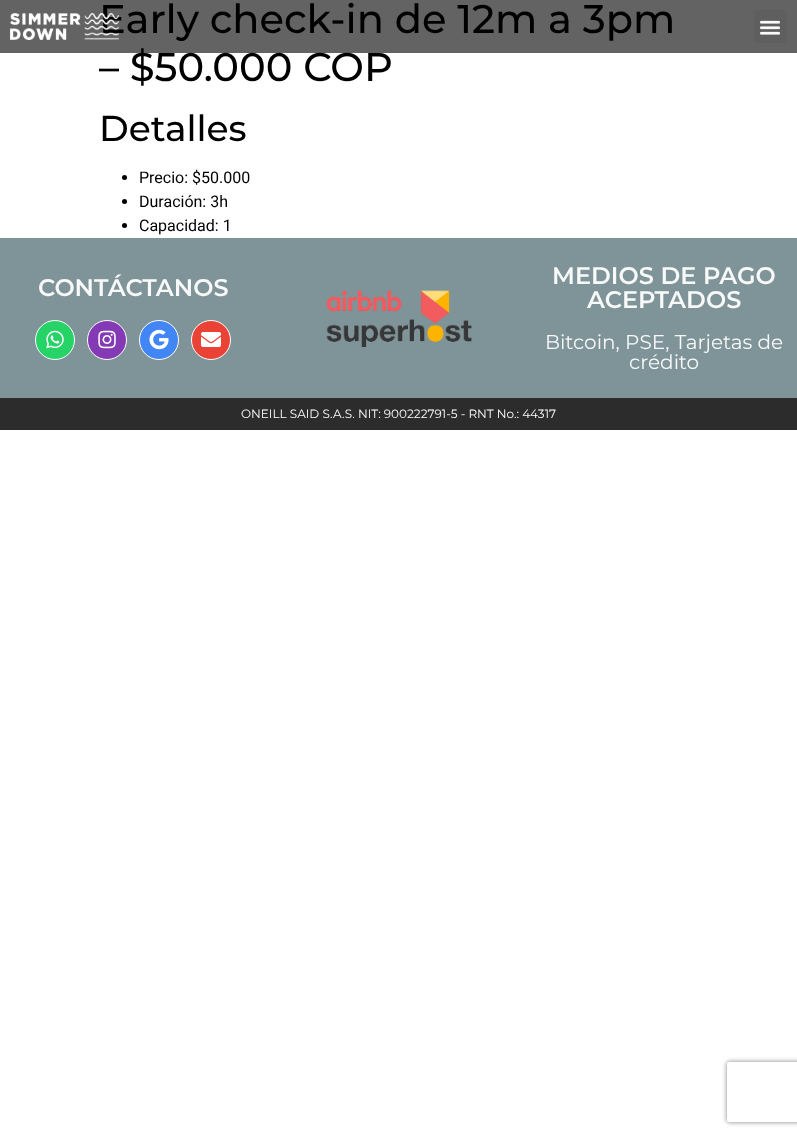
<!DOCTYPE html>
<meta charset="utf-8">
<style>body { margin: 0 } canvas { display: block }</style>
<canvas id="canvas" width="797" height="1136"></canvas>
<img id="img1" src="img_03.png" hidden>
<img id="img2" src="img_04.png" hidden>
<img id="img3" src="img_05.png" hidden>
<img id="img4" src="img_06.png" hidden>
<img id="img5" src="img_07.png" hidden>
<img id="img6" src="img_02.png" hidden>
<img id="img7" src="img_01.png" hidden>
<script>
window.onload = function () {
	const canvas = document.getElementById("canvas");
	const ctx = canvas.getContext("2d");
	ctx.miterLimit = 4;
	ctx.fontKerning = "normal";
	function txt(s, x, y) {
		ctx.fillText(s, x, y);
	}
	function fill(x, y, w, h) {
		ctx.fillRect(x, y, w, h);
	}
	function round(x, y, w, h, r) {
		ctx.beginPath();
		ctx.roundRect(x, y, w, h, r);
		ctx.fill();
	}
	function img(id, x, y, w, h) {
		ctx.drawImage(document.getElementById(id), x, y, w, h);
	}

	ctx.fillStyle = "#FFFFFF";
	fill(0, 0, 797, 1136);
	ctx.fillStyle = "#000000";
	ctx.beginPath();
	ctx.arc(124.5, 177.5, 2.5, 0, Math.PI * 2);
	ctx.fill();
	ctx.beginPath();
	ctx.arc(124.5, 201.5, 2.5, 0, Math.PI * 2);
	ctx.fill();
	ctx.beginPath();
	ctx.arc(124.5, 225.5, 2.5, 0, Math.PI * 2);
	ctx.fill();
	ctx.fillStyle = "#7F9498";
	fill(0, 238, 797, 160);
	ctx.fillStyle = "#25D366";
	ctx.beginPath();
	ctx.arc(55, 340, 19.5, 0, Math.PI * 2);
	ctx.fill();
	ctx.strokeStyle = "#FFFFFF";
	ctx.stroke();
	img("img1", 46, 330, 18, 19);
	ctx.fillStyle = "#833AB4";
	ctx.beginPath();
	ctx.arc(107, 340, 19.5, 0, Math.PI * 2);
	ctx.fill();
	ctx.stroke();
	img("img2", 98, 330, 18, 19);
	ctx.fillStyle = "#4285F4";
	ctx.beginPath();
	ctx.arc(159, 340, 19.5, 0, Math.PI * 2);
	ctx.fill();
	ctx.stroke();
	img("img3", 149, 329, 20, 21);
	ctx.fillStyle = "#EA4335";
	ctx.beginPath();
	ctx.arc(211, 340, 19.5, 0, Math.PI * 2);
	ctx.fill();
	ctx.stroke();
	img("img4", 201, 332, 20, 15);
	img("img5", 326, 290, 146, 57);
	ctx.fillStyle = "#2C2C2C";
	fill(0, 398, 797, 32);
	ctx.save();
	ctx.beginPath();
	ctx.moveTo(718, 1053);
	ctx.lineTo(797, 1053);
	ctx.lineTo(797, 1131);
	ctx.lineTo(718, 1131);
	ctx.closePath();
	ctx.moveTo(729, 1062);
	ctx.lineTo(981, 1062);
	ctx.bezierCurveTo(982, 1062, 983, 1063, 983, 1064);
	ctx.lineTo(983, 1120);
	ctx.bezierCurveTo(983, 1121, 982, 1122, 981, 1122);
	ctx.lineTo(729, 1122);
	ctx.bezierCurveTo(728, 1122, 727, 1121, 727, 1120);
	ctx.lineTo(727, 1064);
	ctx.bezierCurveTo(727, 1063, 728, 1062, 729, 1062);
	ctx.closePath();
	ctx.clip("evenodd");
	ctx.fillStyle = "#808080";
	ctx.filter = "blur(2.5px)";
	ctx.beginPath();
	ctx.roundRect(727, 1062, 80, 60, 2);
	ctx.fill();
	ctx.filter = "none";
	ctx.restore();
	ctx.font = "500 40px Montserrat";
	ctx.fillStyle = "#000000";
	txt("Early check-in de 12m a 3pm", 99, 33);
	txt("– $50.000 COP", 99, 81);
	ctx.fillStyle = "rgba(0, 0, 0, 0.61)";
	fill(0, 0, 797, 53);
	ctx.fillStyle = "#5F5F5F";
	round(754, 10, 33, 33, 3);
	img("img6", 759, 20, 22, 15);
	img("img7", 10, 13, 109, 27);
	ctx.font = "500 36px Montserrat";
	ctx.fillStyle = "#000000";
	txt("Detalles", 99, 141);
	ctx.font = "16px Roboto";
	txt("Precio: $50.000", 139, 183);
	txt("Duración: 3h", 139, 207);
	txt("Capacidad: 1", 139, 231);
	ctx.font = "600 24px Montserrat";
	ctx.fillStyle = "#F8F9F9";
	txt("CONTÁCTANOS", 38, 296);
	txt("MEDIOS DE PAGO", 552, 284);
	txt("ACEPTADOS", 587, 308);
	ctx.font = "20px Montserrat";
	txt("Bitcoin, PSE, Tarjetas de", 545, 349);
	txt("crédito", 629, 369);
	ctx.font = "12px Montserrat";
	ctx.fillStyle = "#FFFFFF";
	txt("ONEILL SAID S.A.S. NIT: 900222791-5 - RNT No.: 44317", 241, 418);
};
</script>
